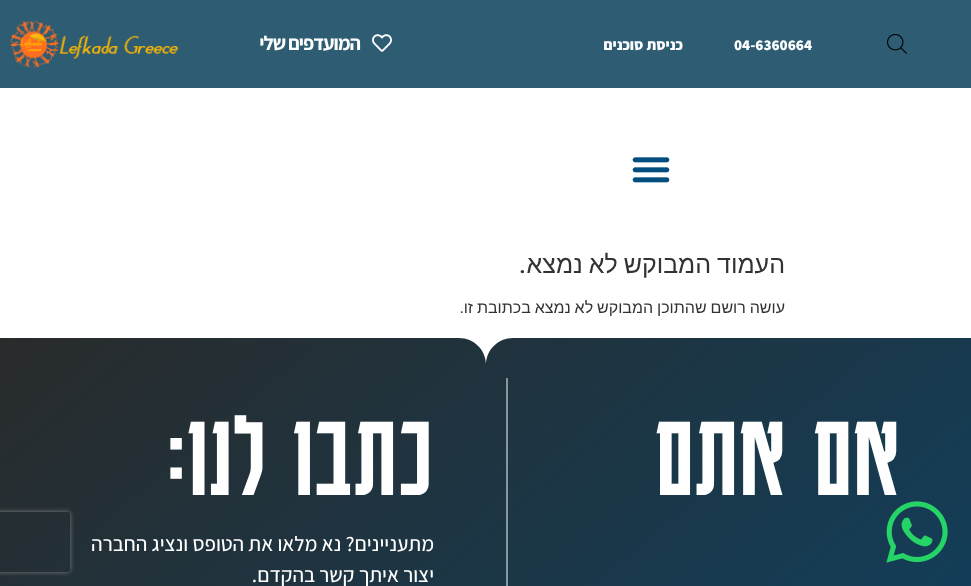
<!DOCTYPE html>
<meta charset="utf-8">
<style>body { margin: 0 } canvas { display: block }</style>
<canvas id="canvas" width="971" height="586"></canvas>
<img id="img1" src="img_01.png" hidden>
<img id="img2" src="img_02.png" hidden>
<img id="img3" src="img_03.png" hidden>
<img id="img4" src="img_04.png" hidden>
<img id="img5" src="img_05.png" hidden>
<script>
window.onload = function () {
	const canvas = document.getElementById("canvas");
	const ctx = canvas.getContext("2d");
	ctx.miterLimit = 4;
	ctx.fontKerning = "normal";
	function txt(s, x, y) {
		ctx.fillText(s, x, y);
	}
	function fill(x, y, w, h) {
		ctx.fillRect(x, y, w, h);
	}
	function img(id, x, y, w, h) {
		ctx.drawImage(document.getElementById(id), x, y, w, h);
	}
	let gradient;

	ctx.fillStyle = "#FFFFFF";
	fill(0, 0, 971, 586);
	ctx.fillStyle = "#2D5C73";
	fill(0, 0, 971, 88);
	img("img1", 887, 34, 20, 20);
	img("img2", 372, 34, 20, 18);
	img("img3", 9, 20, 170, 49);
	img("img4", 632, 157, 38, 26);
	gradient = ctx.createLinearGradient(-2.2, 336, 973, 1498);
	gradient.addColorStop(0, "#292B2B");
	gradient.addColorStop(1, "#004D7E");
	ctx.fillStyle = gradient;
	fill(0, 338, 971, 248);
	img("img5", 886, 501, 62, 62);
	gradient = ctx.createLinearGradient(-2.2, 336, 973, 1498);
	gradient.addColorStop(0, "#909191");
	gradient.addColorStop(1, "#7AA2BC");
	ctx.fillStyle = gradient;
	fill(506, 378, 2, 208);
	ctx.fillStyle = "#FFFFFF";
	ctx.beginPath();
	ctx.moveTo(-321, 333);
	ctx.lineTo(-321, 338);
	ctx.lineTo(459, 338);
	ctx.bezierCurveTo(474, 338, 486, 350, 486, 365);
	ctx.bezierCurveTo(486, 350, 498, 338, 513, 338);
	ctx.lineTo(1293, 338);
	ctx.lineTo(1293, 333);
	ctx.closePath();
	ctx.fill();
	ctx.save();
	ctx.beginPath();
	ctx.moveTo(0, 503);
	ctx.lineTo(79, 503);
	ctx.lineTo(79, 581);
	ctx.lineTo(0, 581);
	ctx.closePath();
	ctx.moveTo(-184, 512);
	ctx.lineTo(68, 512);
	ctx.bezierCurveTo(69, 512, 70, 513, 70, 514);
	ctx.lineTo(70, 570);
	ctx.bezierCurveTo(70, 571, 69, 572, 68, 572);
	ctx.lineTo(-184, 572);
	ctx.bezierCurveTo(-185, 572, -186, 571, -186, 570);
	ctx.lineTo(-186, 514);
	ctx.bezierCurveTo(-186, 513, -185, 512, -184, 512);
	ctx.closePath();
	ctx.clip("evenodd");
	ctx.fillStyle = "#808080";
	ctx.filter = "blur(2.5px)";
	ctx.beginPath();
	ctx.roundRect(-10, 512, 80, 60, 2);
	ctx.fill();
	ctx.filter = "none";
	ctx.restore();
	ctx.font = "800 15px Assistant";
	txt("04-6360664", 734, 50);
	ctx.direction = "rtl";
	txt("כניסת סוכנים", 683, 50);
	ctx.letterSpacing = "-1px";
	ctx.font = "bold 20px Assistant";
	txt("המועדפים שלי", 360, 50);
	ctx.letterSpacing = "0px";
	ctx.wordSpacing = "-1px";
	ctx.font = "25px Liberation Sans";
	ctx.fillStyle = "#333333";
	txt("העמוד המבוקש לא נמצא", 785, 273);
	ctx.wordSpacing = "0px";
	ctx.font = "500 25px Roboto";
	txt(".", 526, 273);
	ctx.wordSpacing = "-0.5px";
	ctx.font = "16px Liberation Sans";
	txt("עושה רושם שהתוכן המבוקש לא נמצא בכתובת זו", 785, 313);
	ctx.wordSpacing = "0px";
	ctx.font = "16px Roboto";
	txt(".", 464, 313);
	ctx.letterSpacing = "3px";
	ctx.font = "122px Karantina";
	ctx.fillStyle = "#FFFFFF";
	txt("אם אתם", 902, 495);
	txt("כתבו לנו:", 434, 495);
	ctx.letterSpacing = "0px";
	ctx.font = "500 21px Assistant";
	txt("מתעניינים? נא מלאו את הטופס ונציג החברה", 434, 551);
	txt("יצור איתך קשר בהקדם.", 434, 582);
};
</script>
